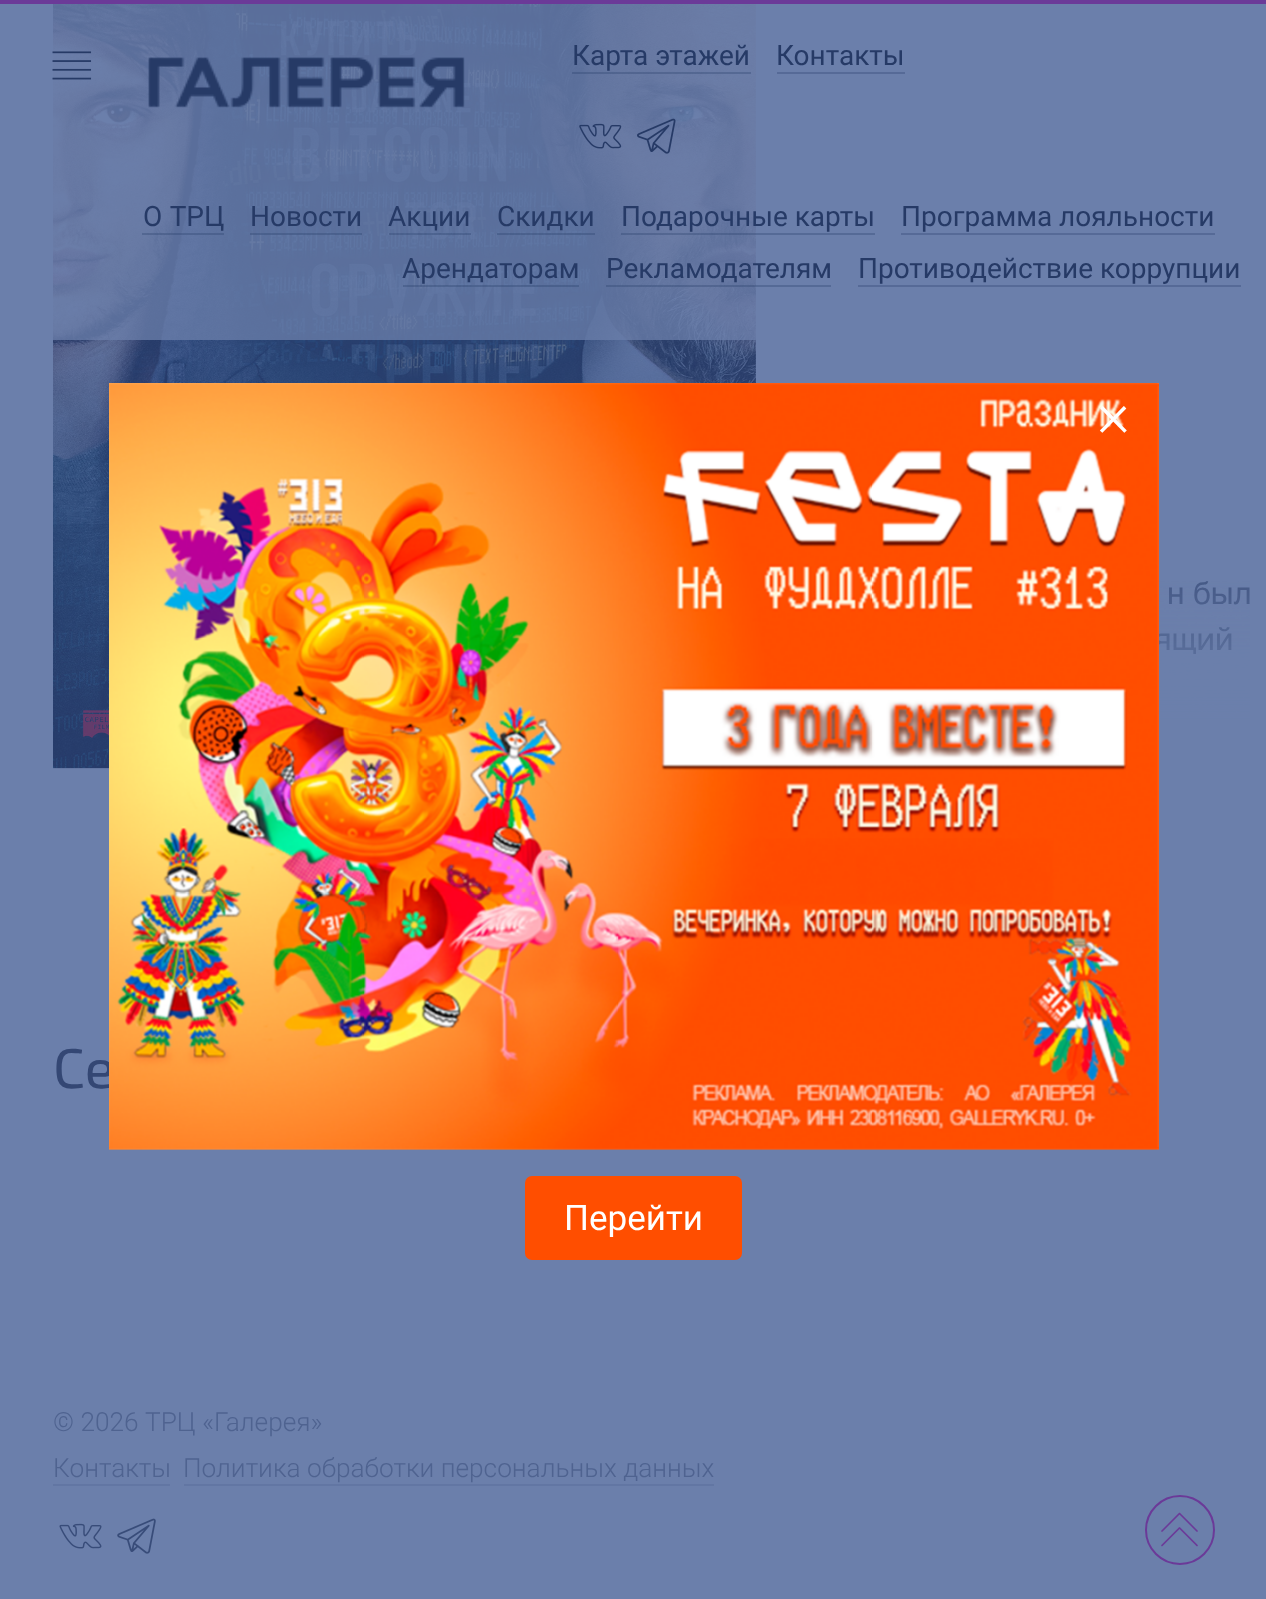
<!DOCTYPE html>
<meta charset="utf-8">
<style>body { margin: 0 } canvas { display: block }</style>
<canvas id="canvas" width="1266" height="1599"></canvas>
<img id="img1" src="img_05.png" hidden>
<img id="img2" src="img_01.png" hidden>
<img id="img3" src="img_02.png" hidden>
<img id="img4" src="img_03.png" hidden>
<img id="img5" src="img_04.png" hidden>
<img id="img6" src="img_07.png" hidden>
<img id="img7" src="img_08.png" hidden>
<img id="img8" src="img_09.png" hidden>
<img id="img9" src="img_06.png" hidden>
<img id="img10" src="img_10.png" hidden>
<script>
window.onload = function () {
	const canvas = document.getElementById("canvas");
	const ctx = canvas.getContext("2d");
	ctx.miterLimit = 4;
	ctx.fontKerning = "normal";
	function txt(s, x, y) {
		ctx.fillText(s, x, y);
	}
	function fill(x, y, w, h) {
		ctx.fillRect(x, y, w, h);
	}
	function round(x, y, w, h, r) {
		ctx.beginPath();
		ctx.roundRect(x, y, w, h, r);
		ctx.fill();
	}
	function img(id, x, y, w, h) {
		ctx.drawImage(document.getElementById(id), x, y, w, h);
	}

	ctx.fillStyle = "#6B7FAB";
	fill(0, 0, 1266, 1599);
	img("img1", 53, 4, 703, 765);
	ctx.fillStyle = "rgba(107, 127, 171, 0.5)";
	fill(53, 4, 703, 336);
	fill(53, 4, 703, 336);
	img("img2", 52, 51, 40, 29);
	ctx.fillStyle = "#6B3A98";
	fill(0, 0, 1266, 4);
	img("img3", 148, 57, 317, 51);
	ctx.fillStyle = "rgba(38, 58, 102, 0.3)";
	fill(572, 72, 179, 2);
	ctx.fillStyle = "#566A97";
	fill(777, 72, 128, 2);
	img("img4", 579, 123, 43, 26);
	img("img5", 637, 118, 39, 36);
	ctx.fillStyle = "rgba(38, 58, 102, 0.3)";
	fill(142, 233, 82, 2);
	fill(250, 233, 112, 2);
	fill(389, 233, 82, 2);
	fill(497, 233, 98, 2);
	fill(621, 233, 254, 2);
	ctx.fillStyle = "#566A97";
	fill(901, 233, 314, 2);
	ctx.fillStyle = "rgba(38, 58, 102, 0.3)";
	fill(403, 285, 176, 2);
	fill(606, 285, 225, 2);
	ctx.fillStyle = "#566A97";
	fill(858, 285, 383, 2);
	ctx.fillStyle = "#6276A3";
	fill(53, 1484, 117, 2);
	fill(184, 1484, 530, 2);
	img("img6", 59, 1523, 43, 26);
	img("img7", 117, 1518, 39, 36);
	ctx.beginPath();
	ctx.arc(1180, 1530, 34, 0, Math.PI * 2);
	ctx.strokeStyle = "#6B3A98";
	ctx.lineWidth = 2;
	ctx.stroke();
	img("img8", 1161, 1512, 37, 35);
	ctx.fillStyle = "#FF4E00";
	round(525, 1176, 217, 84, 7);
	ctx.font = "28px Roboto";
	ctx.fillStyle = "#263A66";
	txt("Карта этажей", 572, 65);
	txt("Контакты", 776, 65);
	ctx.wordSpacing = "1px";
	txt("О ТРЦ", 143, 226);
	ctx.wordSpacing = "0px";
	txt("Новости", 250, 226);
	txt("Акции", 388, 226);
	txt("Скидки", 497, 226);
	txt("Подарочные карты", 621, 226);
	txt("Программа лояльности", 901, 226);
	txt("Арендаторам", 402, 278);
	txt("Рекламодателям", 606, 278);
	txt("Противодействие коррупции", 858, 278);
	ctx.font = "31.5px Helvetica";
	ctx.fillStyle = "#445885";
	txt("н был", 1167, 604);
	txt("ящий", 1154, 650);
	img("img9", 1159, 581, 91, 138);
	ctx.font = "56px 'Exo 2'";
	ctx.fillStyle = "#344774";
	txt("Се", 53, 1088);
	ctx.font = "300 26.25px Roboto";
	ctx.fillStyle = "#4F6390";
	txt("© 2026 ТРЦ «Галерея»", 53, 1431);
	txt("Контакты", 53, 1477);
	txt("Политика обработки персональных данных", 183, 1477);
	img("img10", 109, 383, 1050, 767);
	ctx.font = "300 63px Roboto";
	ctx.fillStyle = "#FFFFFF";
	txt("×", 1097, 436);
	ctx.font = "35px Roboto";
	txt("Перейти", 564, 1230);
};
</script>
